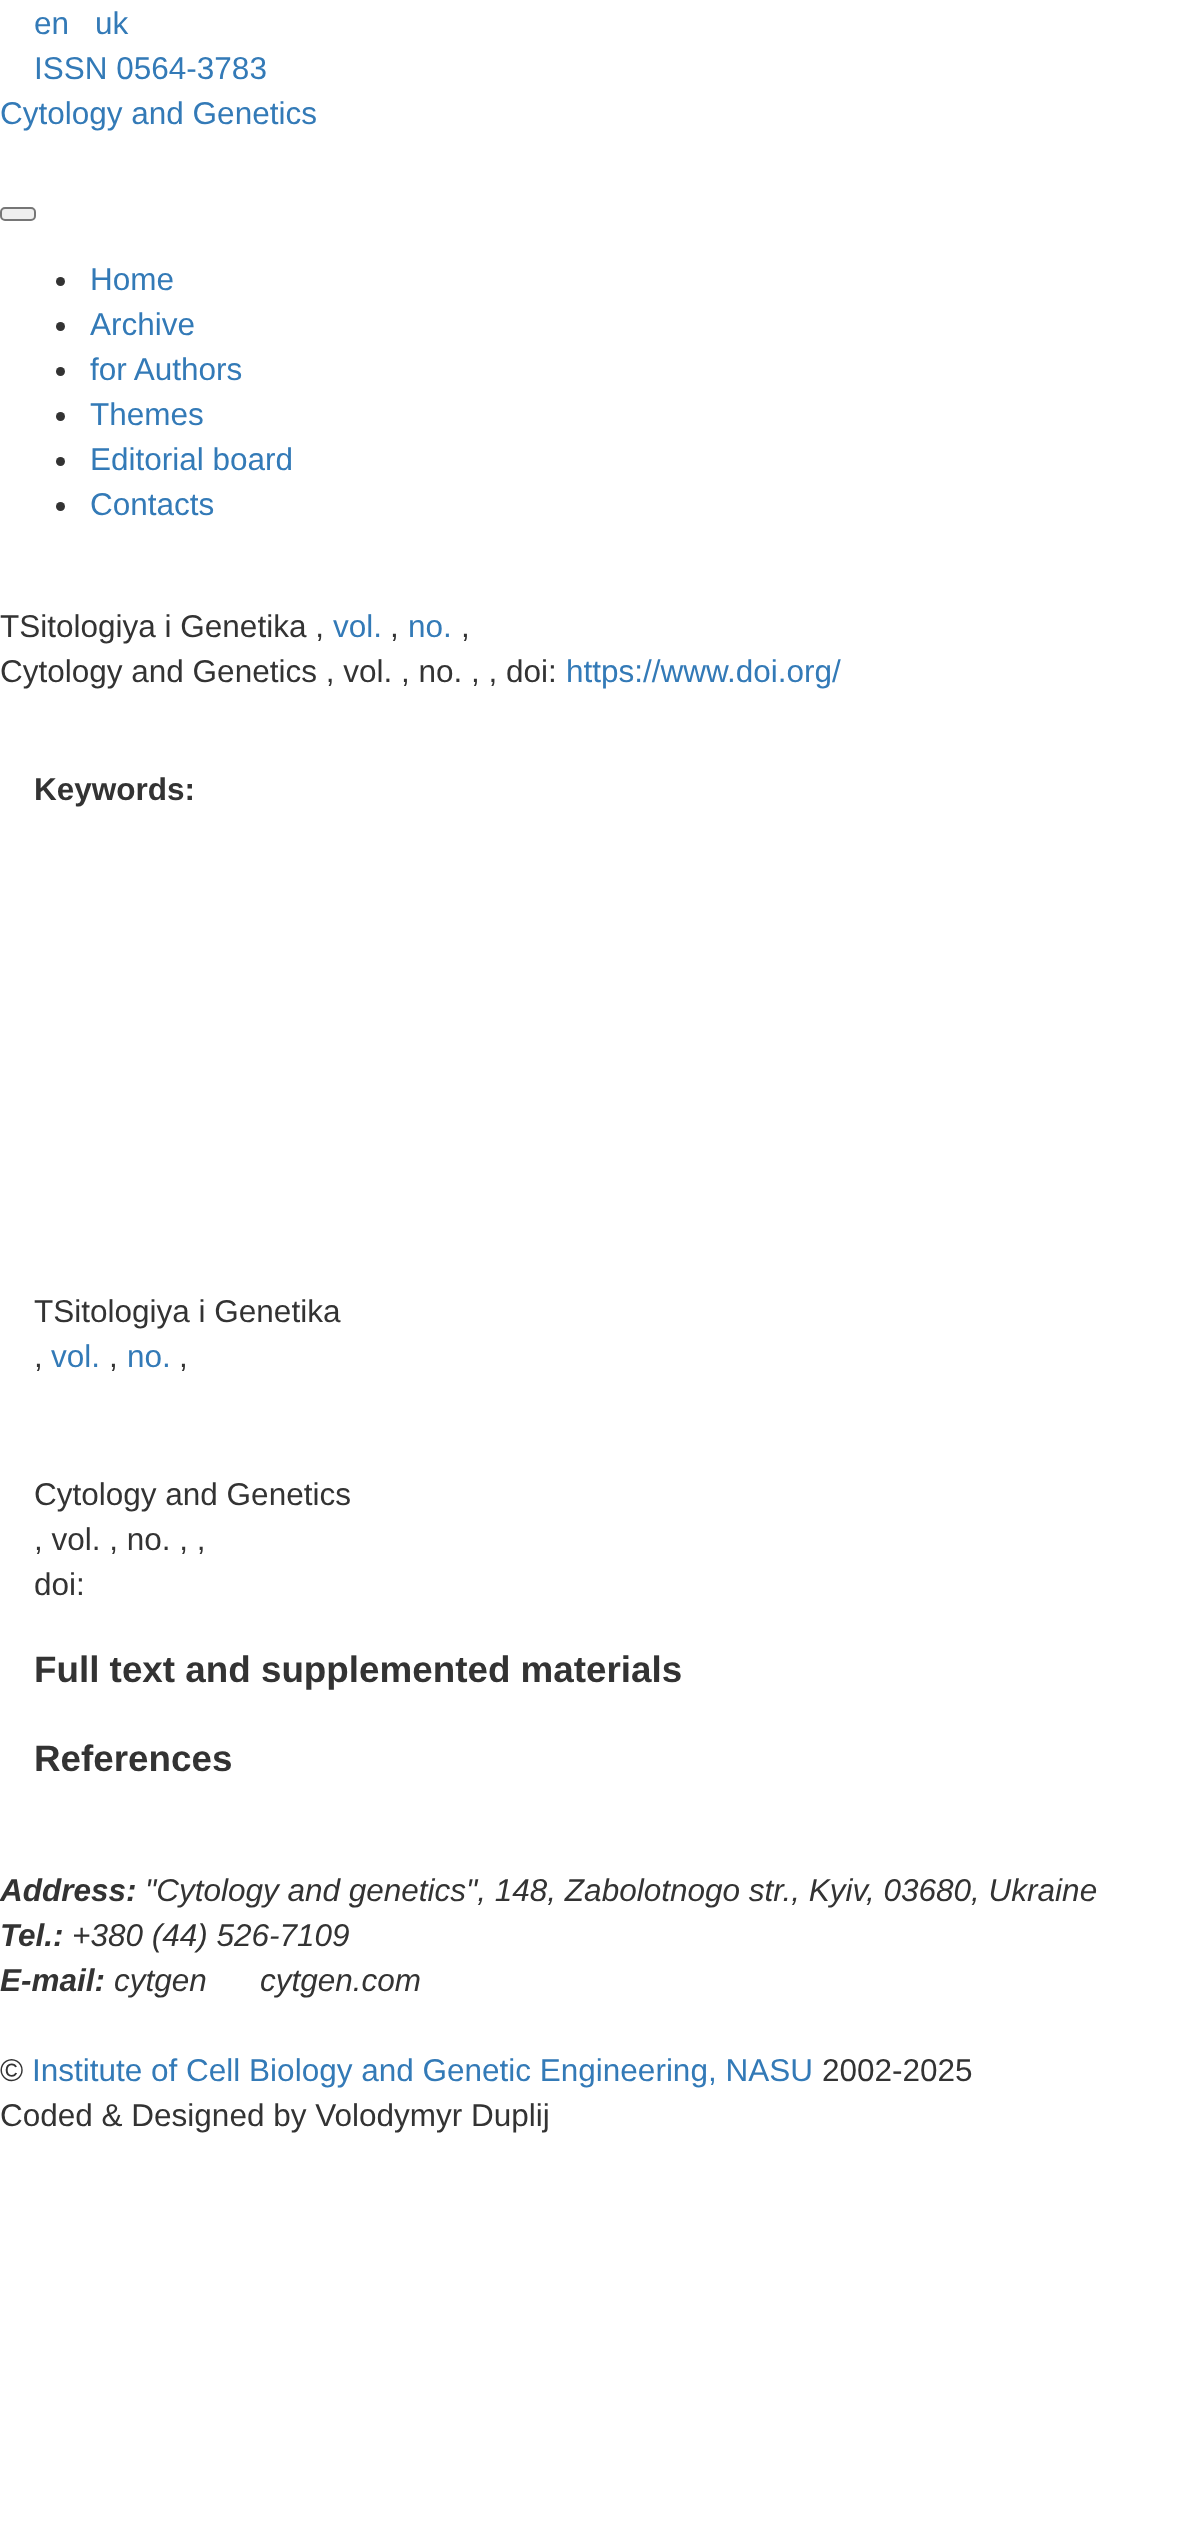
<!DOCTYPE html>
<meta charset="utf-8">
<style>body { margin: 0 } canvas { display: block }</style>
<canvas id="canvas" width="1195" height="2538"></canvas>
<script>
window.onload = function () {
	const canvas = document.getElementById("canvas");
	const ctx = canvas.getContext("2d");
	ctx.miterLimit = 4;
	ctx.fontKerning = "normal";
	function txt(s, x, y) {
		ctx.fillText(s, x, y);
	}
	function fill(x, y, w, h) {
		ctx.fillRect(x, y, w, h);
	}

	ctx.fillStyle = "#FFFFFF";
	fill(0, 0, 1195, 2538);
	ctx.fillStyle = "#EFEFEF";
	ctx.beginPath();
	ctx.roundRect(1, 208, 34, 12, 4);
	ctx.fill();
	ctx.strokeStyle = "#767676";
	ctx.lineWidth = 2;
	ctx.stroke();
	ctx.fillStyle = "#333333";
	ctx.beginPath();
	ctx.arc(60.5, 281.5, 4.5, 0, Math.PI * 2);
	ctx.fill();
	ctx.beginPath();
	ctx.arc(60.5, 326.5, 4.5, 0, Math.PI * 2);
	ctx.fill();
	ctx.beginPath();
	ctx.arc(60.5, 371.5, 4.5, 0, Math.PI * 2);
	ctx.fill();
	ctx.beginPath();
	ctx.arc(60.5, 416.5, 4.5, 0, Math.PI * 2);
	ctx.fill();
	ctx.beginPath();
	ctx.arc(60.5, 461.5, 4.5, 0, Math.PI * 2);
	ctx.fill();
	ctx.beginPath();
	ctx.arc(60.5, 506.5, 4.5, 0, Math.PI * 2);
	ctx.fill();
	ctx.font = "31.5px Liberation Sans";
	ctx.fillStyle = "#337AB7";
	txt("en", 34, 34);
	txt("uk", 95, 34);
	txt("ISSN 0564-3783", 34, 79);
	txt("Cytology and Genetics", 0, 124);
	txt("Home", 90, 290);
	txt("Archive", 90, 335);
	txt("for Authors", 90, 380);
	txt("Themes", 90, 425);
	txt("Editorial board", 90, 470);
	txt("Contacts", 90, 515);
	ctx.fillStyle = "#333333";
	txt("TSitologiya i Genetika ,", 0, 637);
	ctx.fillStyle = "#337AB7";
	txt("vol.", 333, 637);
	ctx.fillStyle = "#333333";
	txt(",", 390, 637);
	ctx.fillStyle = "#337AB7";
	txt("no.", 408, 637);
	ctx.fillStyle = "#333333";
	txt(",", 461, 637);
	txt("Cytology and Genetics , vol. , no. , , doi:", 0, 682);
	ctx.fillStyle = "#337AB7";
	txt("https://www.doi.org/", 566, 682);
	ctx.font = "bold 31.5px Liberation Sans";
	ctx.fillStyle = "#333333";
	txt("Keywords:", 34, 800);
	ctx.font = "31.5px Liberation Sans";
	txt("TSitologiya i Genetika", 34, 1322);
	txt(",", 34, 1367);
	ctx.fillStyle = "#337AB7";
	txt("vol.", 51, 1367);
	ctx.fillStyle = "#333333";
	txt(",", 109, 1367);
	ctx.fillStyle = "#337AB7";
	txt("no.", 127, 1367);
	ctx.fillStyle = "#333333";
	txt(",", 179, 1367);
	txt("Cytology and Genetics", 34, 1505);
	txt(", vol. , no. , ,", 34, 1550);
	txt("doi:", 34, 1595);
	ctx.font = "bold 36.8px Liberation Sans";
	txt("Full text and supplemented materials", 34, 1682);
	txt("References", 34, 1771);
	ctx.font = "italic bold 31.5px Liberation Sans";
	txt("Address:", 0, 1901);
	ctx.font = "italic 31.5px Liberation Sans";
	txt("\"Cytology and genetics\", 148, Zabolotnogo str., Kyiv, 03680, Ukraine", 145, 1901);
	ctx.font = "italic bold 31.5px Liberation Sans";
	txt("Tel.:", 0, 1946);
	ctx.font = "italic 31.5px Liberation Sans";
	txt("+380 (44) 526-7109", 72, 1946);
	ctx.font = "italic bold 31.5px Liberation Sans";
	txt("E-mail:", 0, 1991);
	ctx.font = "italic 31.5px Liberation Sans";
	txt("cytgen", 114, 1991);
	txt("cytgen.com", 260, 1991);
	ctx.font = "31.5px Liberation Sans";
	txt("©", 0, 2081);
	ctx.fillStyle = "#337AB7";
	txt("Institute of Cell Biology and Genetic Engineering, NASU", 32, 2081);
	ctx.fillStyle = "#333333";
	txt("2002-2025", 822, 2081);
	txt("Coded & Designed by Volodymyr Duplij", 0, 2126);
};
</script>
